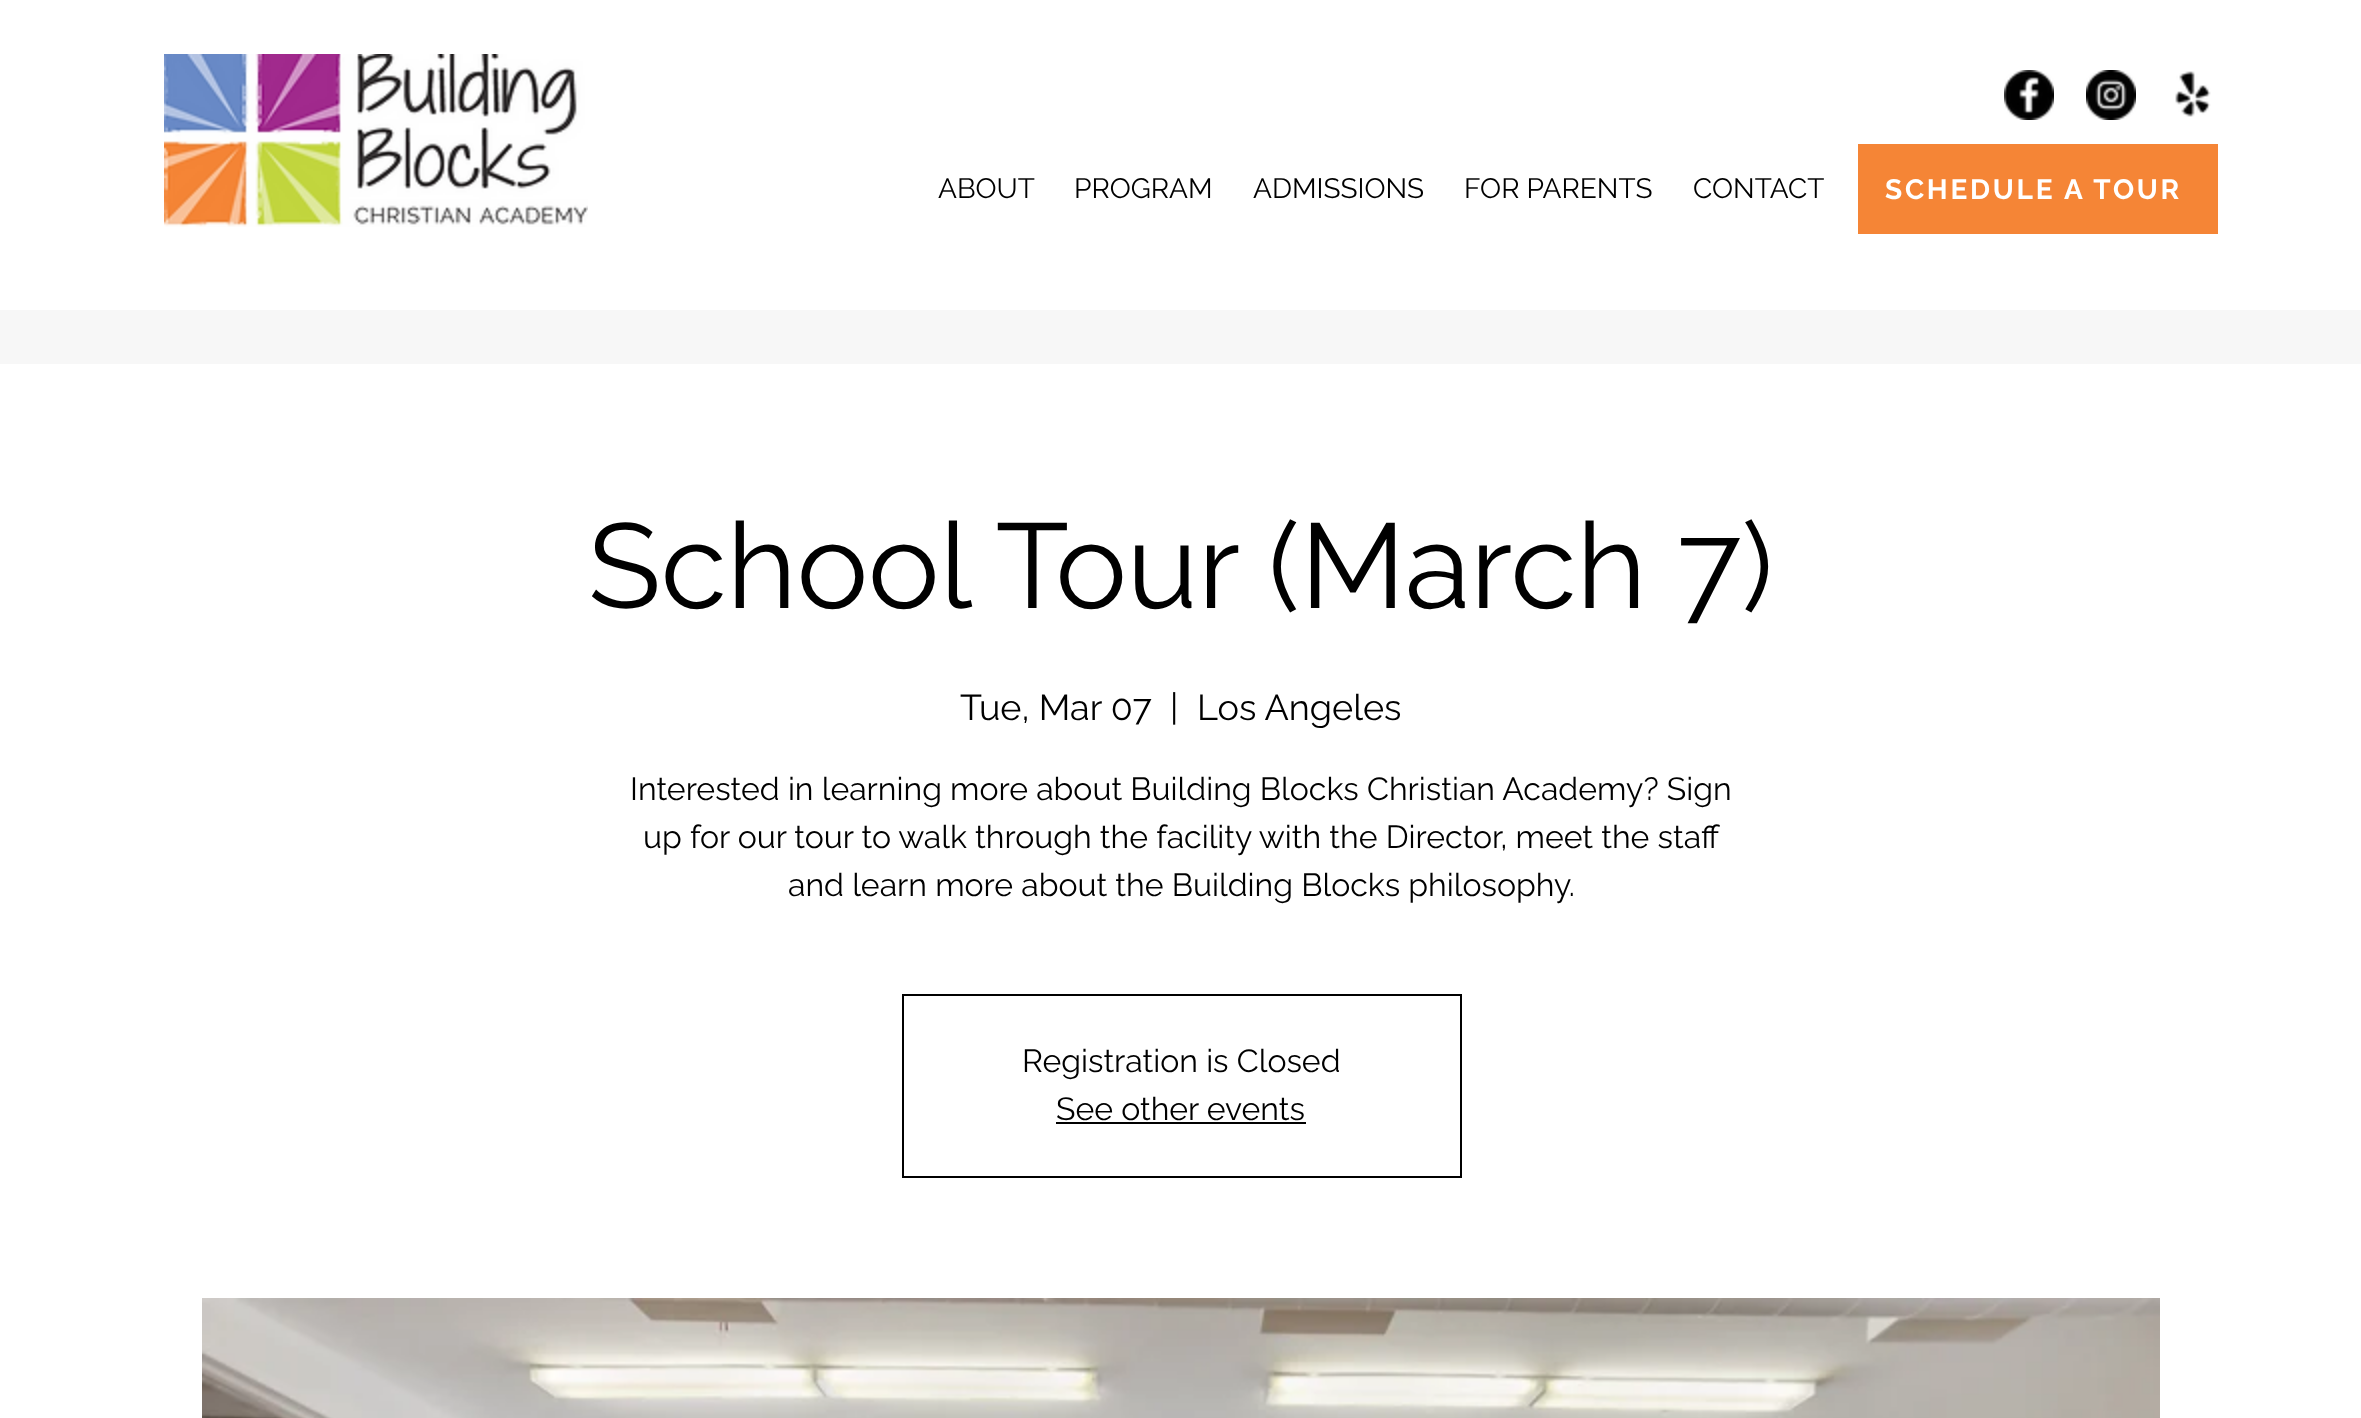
<!DOCTYPE html>
<meta charset="utf-8">
<style>body { margin: 0 } canvas { display: block }</style>
<canvas id="canvas" width="2361" height="1418"></canvas>
<img id="img1" src="img_01.png" hidden>
<img id="img2" src="img_02.png" hidden>
<img id="img3" src="img_03.png" hidden>
<img id="img4" src="img_04.png" hidden>
<img id="img5" src="img_05.png" hidden>
<script>
window.onload = function () {
	const canvas = document.getElementById("canvas");
	const ctx = canvas.getContext("2d");
	ctx.miterLimit = 4;
	ctx.fontKerning = "normal";
	function txt(s, x, y) {
		ctx.fillText(s, x, y);
	}
	function fill(x, y, w, h) {
		ctx.fillRect(x, y, w, h);
	}
	function img(id, x, y, w, h) {
		ctx.drawImage(document.getElementById(id), x, y, w, h);
	}

	ctx.fillStyle = "#FFFFFF";
	fill(0, 0, 2361, 1418);
	img("img1", 164, 54, 424, 173);
	img("img2", 2004, 70, 50, 50);
	img("img3", 2086, 70, 50, 50);
	img("img4", 2175, 71, 36, 46);
	ctx.fillStyle = "#F58536";
	fill(1858, 144, 360, 90);
	ctx.fillStyle = "#F7F7F7";
	fill(0, 310, 2361, 54);
	ctx.strokeStyle = "#000000";
	ctx.lineWidth = 2;
	ctx.strokeRect(903, 995, 558, 182);
	ctx.fillStyle = "#000000";
	fill(1056, 1122, 250, 2);
	img("img5", 202, 1298, 1958, 120);
	ctx.font = "28px Raleway";
	txt("ABOUT", 938, 198);
	txt("PROGRAM", 1074, 198);
	txt("ADMISSIONS", 1253, 198);
	txt("FOR PARENTS", 1464, 198);
	txt("CONTACT", 1693, 198);
	ctx.letterSpacing = "2.75px";
	ctx.font = "bold 28px Raleway";
	ctx.fillStyle = "#FFFFFF";
	txt("SCHEDULE A TOUR", 1885, 199);
	ctx.letterSpacing = "0px";
	ctx.font = "120px Raleway";
	ctx.fillStyle = "#000000";
	txt("School Tour (March 7)", 588, 608);
	ctx.font = "36px Raleway";
	txt("Tue, Mar 07", 960, 720);
	txt("|", 1170, 720);
	txt("Los Angeles", 1197, 720);
	ctx.font = "32px Raleway";
	txt("Interested in learning more about Building Blocks Christian Academy? Sign", 630, 800);
	txt("up for our tour to walk through the facility with the Director, meet the staff", 643, 848);
	txt("and learn more about the Building Blocks philosophy.", 788, 896);
	txt("Registration is Closed", 1022, 1072);
	txt("See other events", 1056, 1120);
};
</script>
